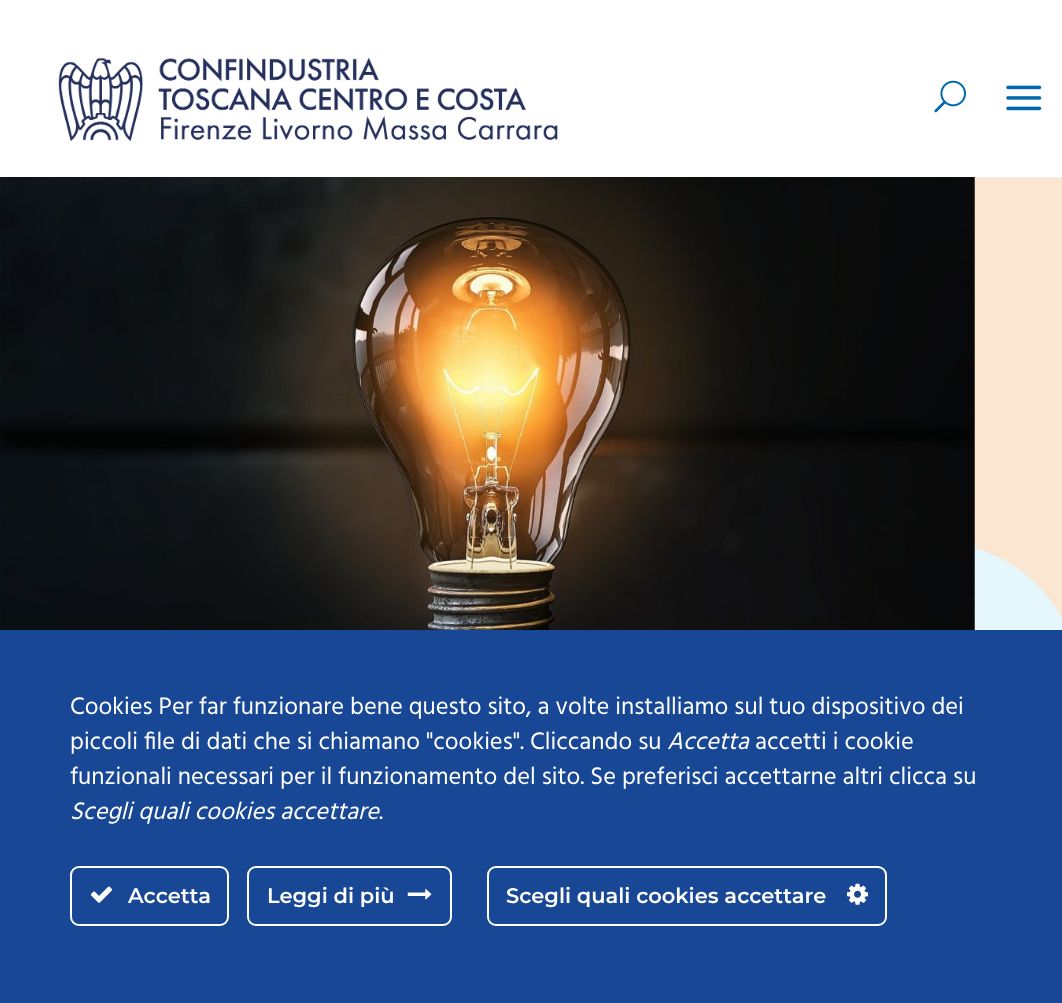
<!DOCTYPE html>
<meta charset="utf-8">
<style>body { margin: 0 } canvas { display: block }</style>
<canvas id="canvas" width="1062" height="1003"></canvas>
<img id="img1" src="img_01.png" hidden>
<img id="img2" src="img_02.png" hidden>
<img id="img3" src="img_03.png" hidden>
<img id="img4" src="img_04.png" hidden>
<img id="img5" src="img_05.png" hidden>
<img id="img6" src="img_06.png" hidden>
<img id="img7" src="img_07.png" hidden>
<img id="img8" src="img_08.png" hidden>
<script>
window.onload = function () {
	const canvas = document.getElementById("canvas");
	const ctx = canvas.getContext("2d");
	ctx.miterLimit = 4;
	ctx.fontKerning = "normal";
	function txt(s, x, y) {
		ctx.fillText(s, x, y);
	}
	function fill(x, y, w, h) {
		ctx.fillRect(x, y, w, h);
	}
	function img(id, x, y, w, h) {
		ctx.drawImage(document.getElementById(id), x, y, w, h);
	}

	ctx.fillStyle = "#FFFFFF";
	fill(0, 0, 1062, 1003);
	img("img1", 58, 57, 500, 85);
	img("img2", 934, 80, 32, 33);
	img("img3", 1006, 85, 36, 26);
	img("img4", 974, 177, 88, 453);
	img("img5", 0, 177, 975, 453);
	ctx.fillStyle = "#184795";
	fill(0, 630, 1062, 373);
	ctx.beginPath();
	ctx.roundRect(71, 867, 157, 58, 8);
	ctx.strokeStyle = "#FFFFFF";
	ctx.lineWidth = 2;
	ctx.stroke();
	img("img6", 90, 886, 23, 17);
	ctx.beginPath();
	ctx.roundRect(248, 867, 203, 58, 8);
	ctx.stroke();
	img("img7", 407, 889, 25, 11);
	ctx.beginPath();
	ctx.roundRect(488, 867, 398, 58, 8);
	ctx.stroke();
	img("img8", 847, 883, 21, 22);
	ctx.font = "24.5px Hind";
	ctx.fillStyle = "#FFFFFF";
	txt("Cookies Per far funzionare bene questo sito, a volte installiamo sul tuo dispositivo dei", 70, 714);
	txt("piccoli file di dati che si chiamano \"cookies\". Cliccando su", 70, 749);
	ctx.font = "italic 24.5px Hind";
	txt("Accetta", 667, 749);
	ctx.font = "24.5px Hind";
	txt("accetti i cookie", 755, 749);
	txt("funzionali necessari per il funzionamento del sito. Se preferisci accettarne altri clicca su", 70, 784);
	ctx.font = "italic 24.5px Hind";
	txt("Scegli quali cookies accettare", 70, 819);
	ctx.font = "24.5px Hind";
	txt(".", 379, 819);
	ctx.font = "600 21px Montserrat";
	txt("Accetta", 128, 903);
	txt("Leggi di più", 267, 903);
	txt("Scegli quali cookies accettare", 506, 903);
};
</script>
